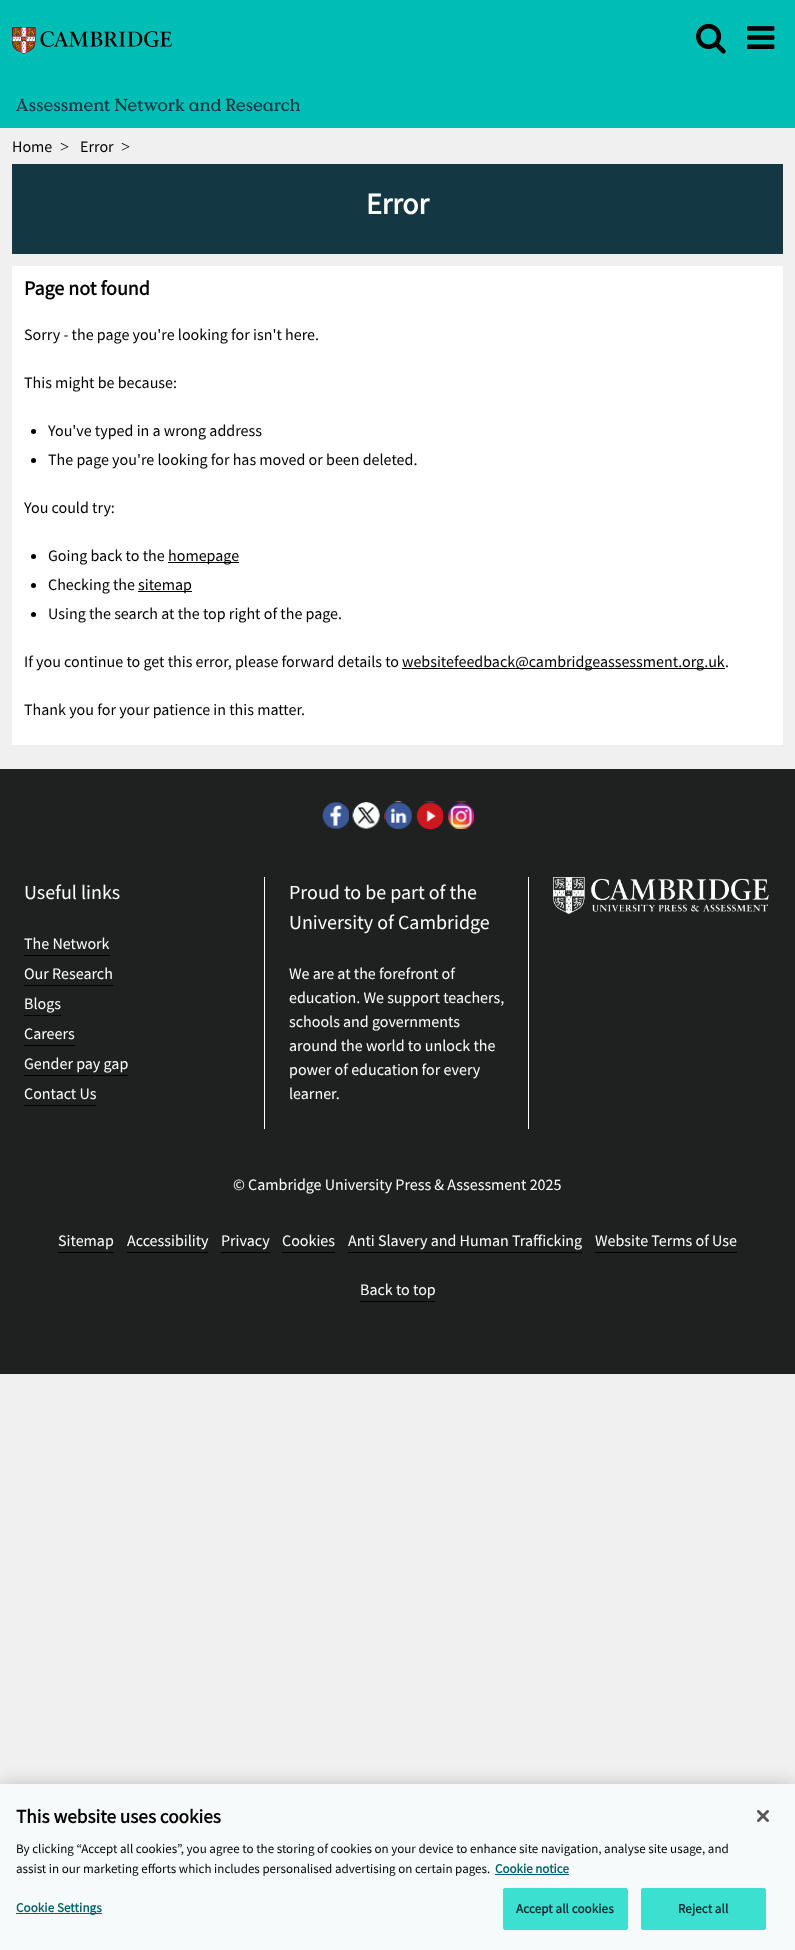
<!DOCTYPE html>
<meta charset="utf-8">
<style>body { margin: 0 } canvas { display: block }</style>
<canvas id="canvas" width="795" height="1950"></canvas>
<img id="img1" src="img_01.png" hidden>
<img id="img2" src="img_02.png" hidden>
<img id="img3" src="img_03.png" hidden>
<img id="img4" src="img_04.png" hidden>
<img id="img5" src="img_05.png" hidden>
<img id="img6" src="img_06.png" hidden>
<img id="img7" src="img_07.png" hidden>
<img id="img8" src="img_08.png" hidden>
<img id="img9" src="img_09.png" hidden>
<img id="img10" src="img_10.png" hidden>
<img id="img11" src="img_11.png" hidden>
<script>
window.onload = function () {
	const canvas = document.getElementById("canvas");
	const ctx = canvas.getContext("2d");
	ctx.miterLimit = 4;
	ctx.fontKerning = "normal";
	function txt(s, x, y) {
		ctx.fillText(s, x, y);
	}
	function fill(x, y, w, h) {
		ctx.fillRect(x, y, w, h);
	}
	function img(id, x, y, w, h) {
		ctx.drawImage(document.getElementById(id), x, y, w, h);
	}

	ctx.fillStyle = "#F0F0F0";
	fill(0, 0, 795, 1950);
	ctx.fillStyle = "#00BDB6";
	fill(0, 0, 795, 128);
	img("img1", 12, 27, 160, 27);
	img("img2", 696, 23, 30, 31);
	img("img3", 747, 26, 28, 23);
	img("img4", 16, 98, 284, 14);
	ctx.fillStyle = "#133844";
	fill(12, 164, 771, 90);
	ctx.fillStyle = "#FFFFFF";
	fill(12, 266, 771, 479);
	ctx.fillStyle = "#000000";
	ctx.beginPath();
	ctx.arc(33.5, 431.5, 2.5, 0, Math.PI * 2);
	ctx.fill();
	ctx.beginPath();
	ctx.arc(33.5, 460.5, 2.5, 0, Math.PI * 2);
	ctx.fill();
	ctx.beginPath();
	ctx.arc(33.5, 556.5, 2.5, 0, Math.PI * 2);
	ctx.fill();
	fill(168, 562, 71, 1);
	ctx.beginPath();
	ctx.arc(33.5, 585.5, 2.5, 0, Math.PI * 2);
	ctx.fill();
	fill(138, 591, 54, 1);
	ctx.beginPath();
	ctx.arc(33.5, 614.5, 2.5, 0, Math.PI * 2);
	ctx.fill();
	fill(402, 668, 323, 1);
	ctx.fillStyle = "#1F2121";
	fill(0, 769, 795, 605);
	img("img5", 322, 802, 27, 27);
	img("img6", 352, 802, 28, 27);
	img("img7", 384, 801, 28, 28);
	img("img8", 416, 801, 27, 28);
	img("img9", 448, 801, 26, 28);
	ctx.fillStyle = "#000000";
	fill(24, 955, 86, 1);
	fill(24, 985, 89, 1);
	fill(24, 1015, 37, 1);
	fill(24, 1045, 51, 1);
	fill(24, 1075, 104, 1);
	fill(24, 1105, 72, 1);
	ctx.fillStyle = "#FFFFFF";
	fill(264, 877, 1, 252);
	fill(528, 877, 1, 252);
	img("img10", 553, 877, 216, 37);
	ctx.fillStyle = "#000000";
	fill(58, 1252, 56, 1);
	fill(127, 1252, 81, 1);
	fill(221, 1252, 49, 1);
	fill(282, 1252, 53, 1);
	fill(348, 1252, 234, 1);
	fill(595, 1252, 142, 1);
	fill(360, 1301, 75, 1);
	ctx.fillStyle = "rgba(0, 0, 0, 0.2)";
	ctx.filter = "blur(9px)";
	ctx.beginPath();
	ctx.rect(0, 1784, 795, 166);
	ctx.fill();
	ctx.filter = "none";
	ctx.fillStyle = "#F7FAFA";
	fill(0, 1784, 795, 166);
	ctx.fillStyle = "#036268";
	fill(495, 1874, 74, 1);
	fill(16, 1913, 86, 1);
	ctx.fillStyle = "#3BE0D0";
	ctx.beginPath();
	ctx.roundRect(503.5, 1888.5, 124, 41, 1.5);
	ctx.fill();
	ctx.strokeStyle = "#3BE0D0";
	ctx.stroke();
	ctx.beginPath();
	ctx.roundRect(641.5, 1888.5, 124, 41, 1.5);
	ctx.fill();
	ctx.stroke();
	img("img11", 757, 1810, 12, 12);
	ctx.font = "16px Source Sans Pro";
	ctx.fillStyle = "#000000";
	txt("Home", 12, 152);
	ctx.font = "16px Liberation Serif";
	txt("˃", 60, 152);
	ctx.font = "16px Source Sans Pro";
	txt("Error", 80, 152);
	ctx.font = "16px Liberation Serif";
	txt("˃", 121, 152);
	ctx.font = "bold 30px Source Sans Pro";
	ctx.fillStyle = "#FFFFFF";
	txt("Error", 366, 214);
	ctx.font = "bold 20px Source Sans Pro";
	ctx.fillStyle = "#000000";
	txt("Page not found", 24, 295);
	ctx.font = "16px Source Sans Pro";
	txt("Sorry - the page you're looking for isn't here.", 24, 340);
	txt("This might be because:", 24, 388);
	txt("You've typed in a wrong address", 48, 436);
	txt("The page you're looking for has moved or been deleted.", 48, 465);
	txt("You could try:", 24, 513);
	txt("Going back to the", 48, 561);
	txt("homepage", 168, 561);
	txt("Checking the", 48, 590);
	txt("sitemap", 138, 590);
	txt("Using the search at the top right of the page.", 48, 619);
	txt("If you continue to get this error, please forward details to", 24, 667);
	txt("websitefeedback@cambridgeassessment.org.uk.", 402, 667);
	txt("Thank you for your patience in this matter.", 24, 715);
	ctx.font = "20px Source Sans Pro";
	ctx.fillStyle = "#FFFFFF";
	txt("Useful links", 24, 899);
	ctx.font = "16px Source Sans Pro";
	txt("The Network", 24, 949);
	txt("Our Research", 24, 979);
	txt("Blogs", 24, 1009);
	txt("Careers", 24, 1039);
	txt("Gender pay gap", 24, 1069);
	txt("Contact Us", 24, 1099);
	ctx.font = "20px Source Sans Pro";
	txt("Proud to be part of the", 289, 899);
	txt("University of Cambridge", 289, 929);
	ctx.font = "16px Source Sans Pro";
	txt("We are at the forefront of", 289, 979);
	txt("education. We support teachers,", 289, 1003);
	txt("schools and governments", 289, 1027);
	txt("around the world to unlock the", 289, 1051);
	txt("power of education for every", 289, 1075);
	txt("learner.", 289, 1099);
	txt("© Cambridge University Press & Assessment 2025", 233, 1190);
	txt("Sitemap", 58, 1246);
	txt("Accessibility", 127, 1246);
	txt("Privacy", 221, 1246);
	txt("Cookies", 282, 1246);
	txt("Anti Slavery and Human Trafficking", 348, 1246);
	txt("Website Terms of Use", 595, 1246);
	txt("Back to top", 360, 1295);
	ctx.font = "bold 19.25px Source Sans Pro";
	ctx.fillStyle = "#000000";
	txt("This website uses cookies", 16, 1823);
	ctx.font = "13px Source Sans Pro";
	txt("By clicking “Accept all cookies”, you agree to the storing of cookies on your device to enhance site navigation, analyse site usage, and", 16, 1853);
	txt("assist in our marketing efforts which includes personalised advertising on certain pages.", 16, 1873);
	ctx.font = "bold 13px Source Sans Pro";
	ctx.fillStyle = "#036268";
	txt("Cookie notice", 495, 1873);
	ctx.letterSpacing = "0.1px";
	txt("Cookie Settings", 16, 1912);
	ctx.fillStyle = "#112730";
	txt("Accept all cookies", 516, 1913);
	txt("Reject all", 678, 1913);
};
</script>
